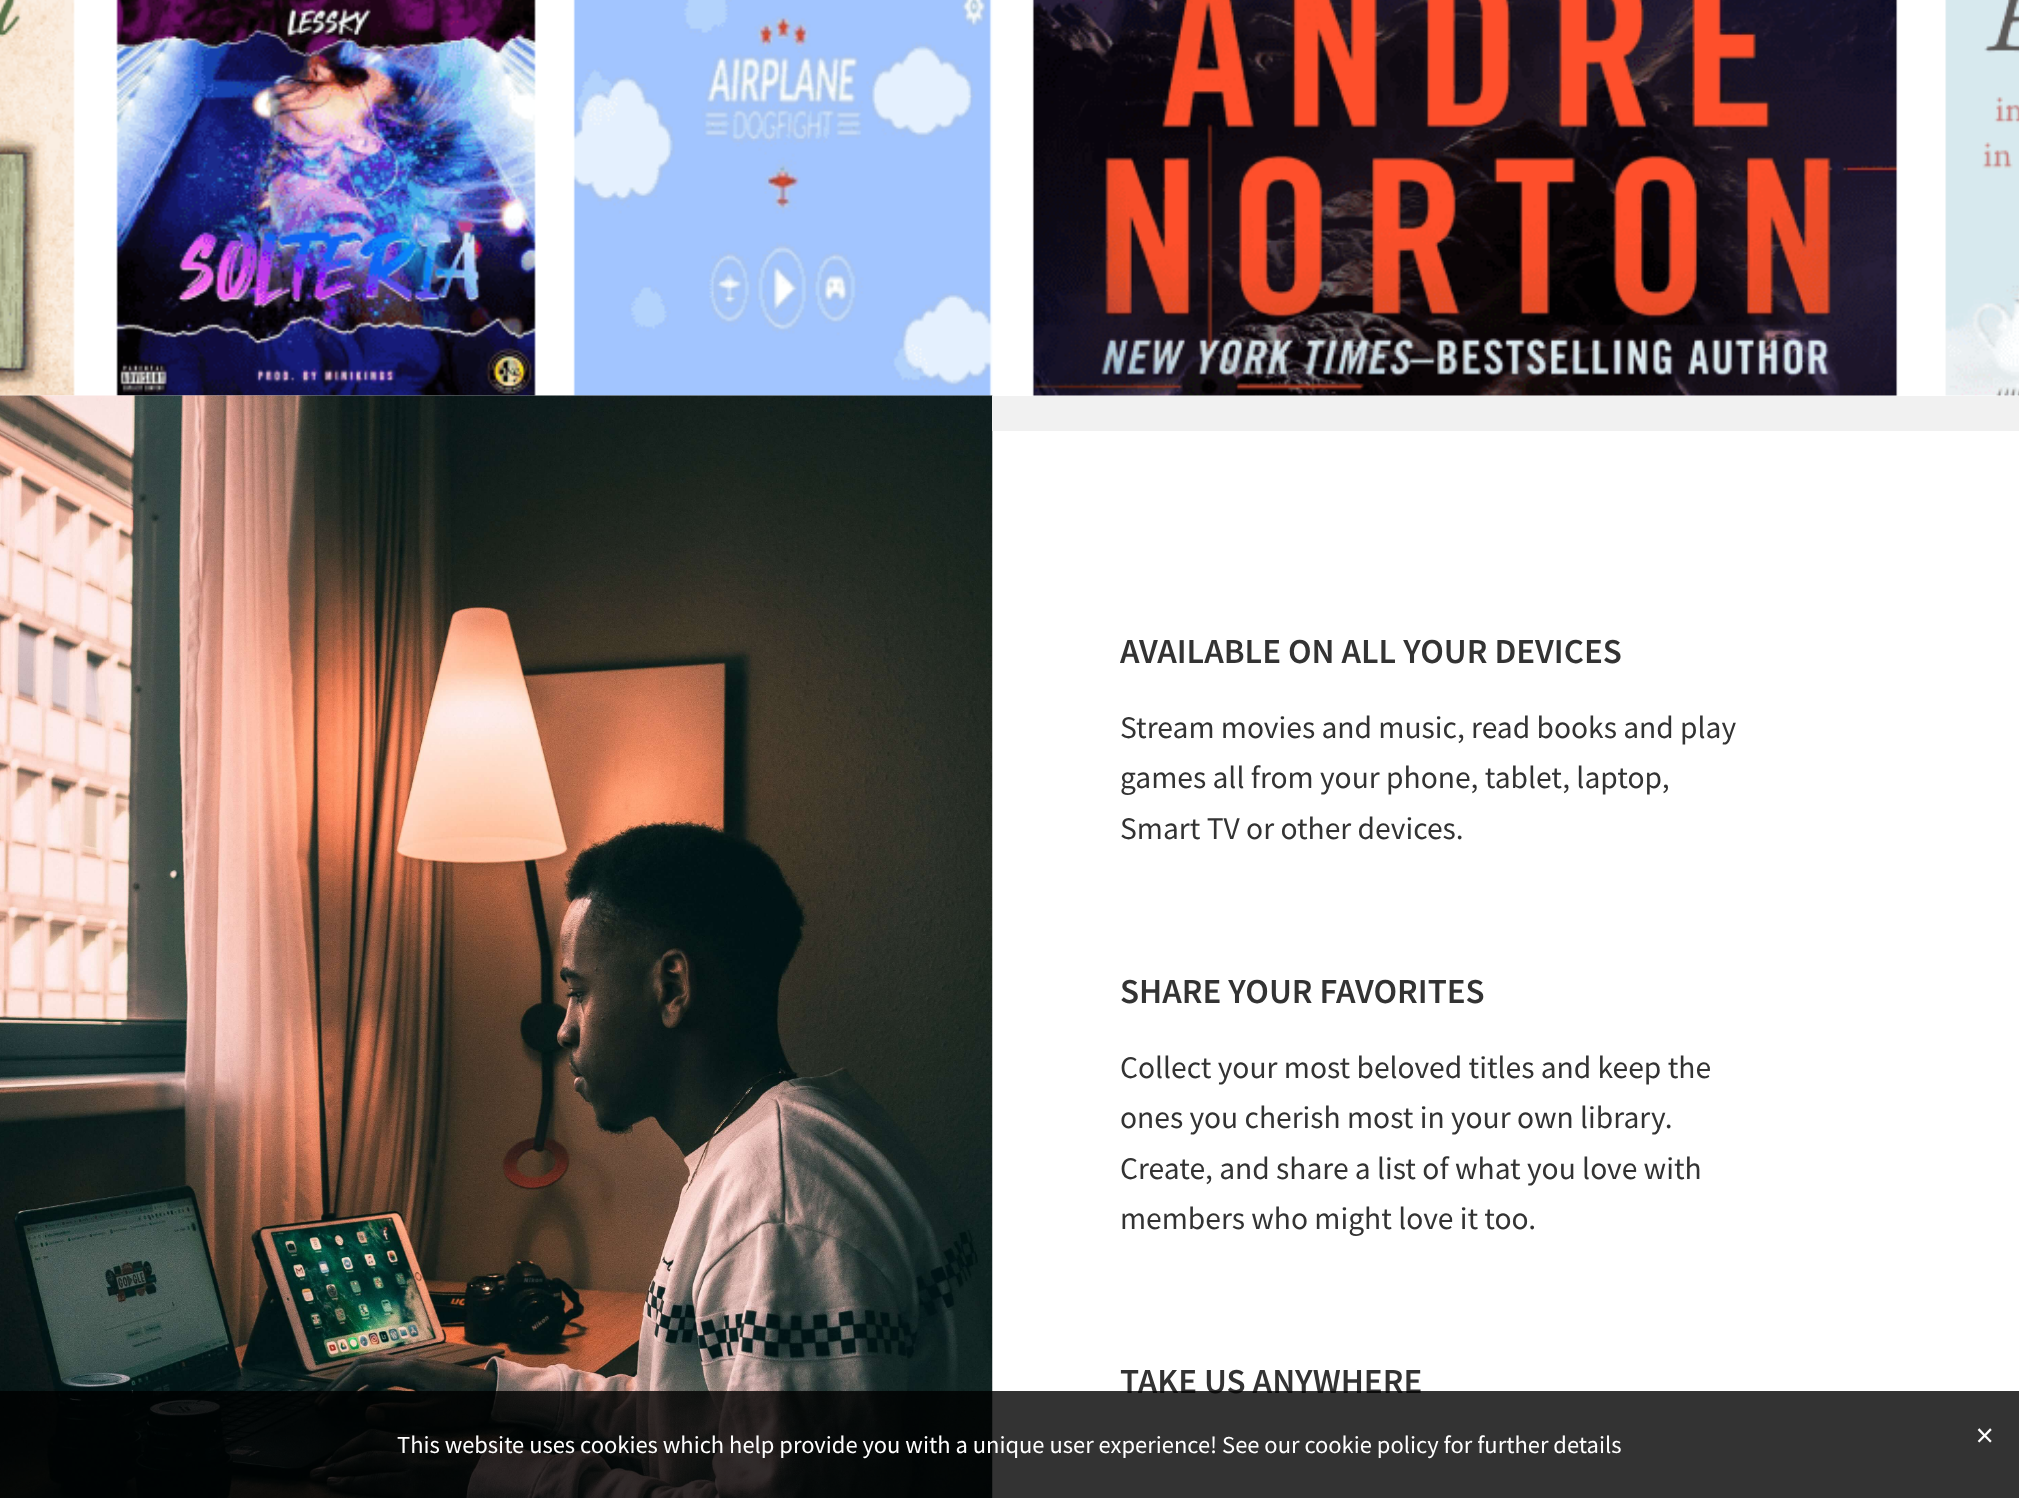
<!DOCTYPE html>
<meta charset="utf-8">
<style>body { margin: 0 } canvas { display: block }</style>
<canvas id="canvas" width="2019" height="1498"></canvas>
<img id="img1" src="img_01.png" hidden>
<img id="img2" src="img_02.png" hidden>
<script>
window.onload = function () {
	const canvas = document.getElementById("canvas");
	const ctx = canvas.getContext("2d");
	ctx.miterLimit = 4;
	ctx.fontKerning = "normal";
	function txt(s, x, y) {
		ctx.fillText(s, x, y);
	}
	function fill(x, y, w, h) {
		ctx.fillRect(x, y, w, h);
	}
	function img(id, x, y, w, h) {
		ctx.drawImage(document.getElementById(id), x, y, w, h);
	}

	ctx.fillStyle = "#FFFFFF";
	fill(0, 0, 2019, 1498);
	img("img1", 0, 0, 2019, 396);
	img("img2", 0, 395, 993, 1103);
	ctx.fillStyle = "#F1F1F1";
	fill(992, 396, 1027, 35);
	ctx.font = "600 35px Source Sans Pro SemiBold";
	ctx.fillStyle = "#333333";
	txt("AVAILABLE ON ALL YOUR DEVICES", 1120, 663);
	ctx.font = "31.5px Source Sans Pro";
	txt("Stream movies and music, read books and play", 1120, 738);
	txt("games all from your phone, tablet, laptop,", 1120, 788);
	txt("Smart TV or other devices.", 1120, 839);
	ctx.font = "600 35px Source Sans Pro SemiBold";
	txt("SHARE YOUR FAVORITES", 1120, 1003);
	ctx.font = "31.5px Source Sans Pro";
	txt("Collect your most beloved titles and keep the", 1120, 1078);
	txt("ones you cherish most in your own library.", 1120, 1128);
	txt("Create, and share a list of what you love with", 1120, 1179);
	txt("members who might love it too.", 1120, 1229);
	ctx.font = "600 35px Source Sans Pro SemiBold";
	txt("TAKE US ANYWHERE", 1120, 1393);
	ctx.fillStyle = "rgba(0, 0, 0, 0.8)";
	fill(0, 1391, 2019, 107);
	ctx.font = "24.5px Source Sans Pro";
	ctx.fillStyle = "#FFFFFF";
	txt("This website uses cookies which help provide you with a unique user experience! See our cookie policy for further details", 397, 1453);
	ctx.font = "35px Source Sans Pro";
	txt("×", 1976, 1447);
};
</script>
